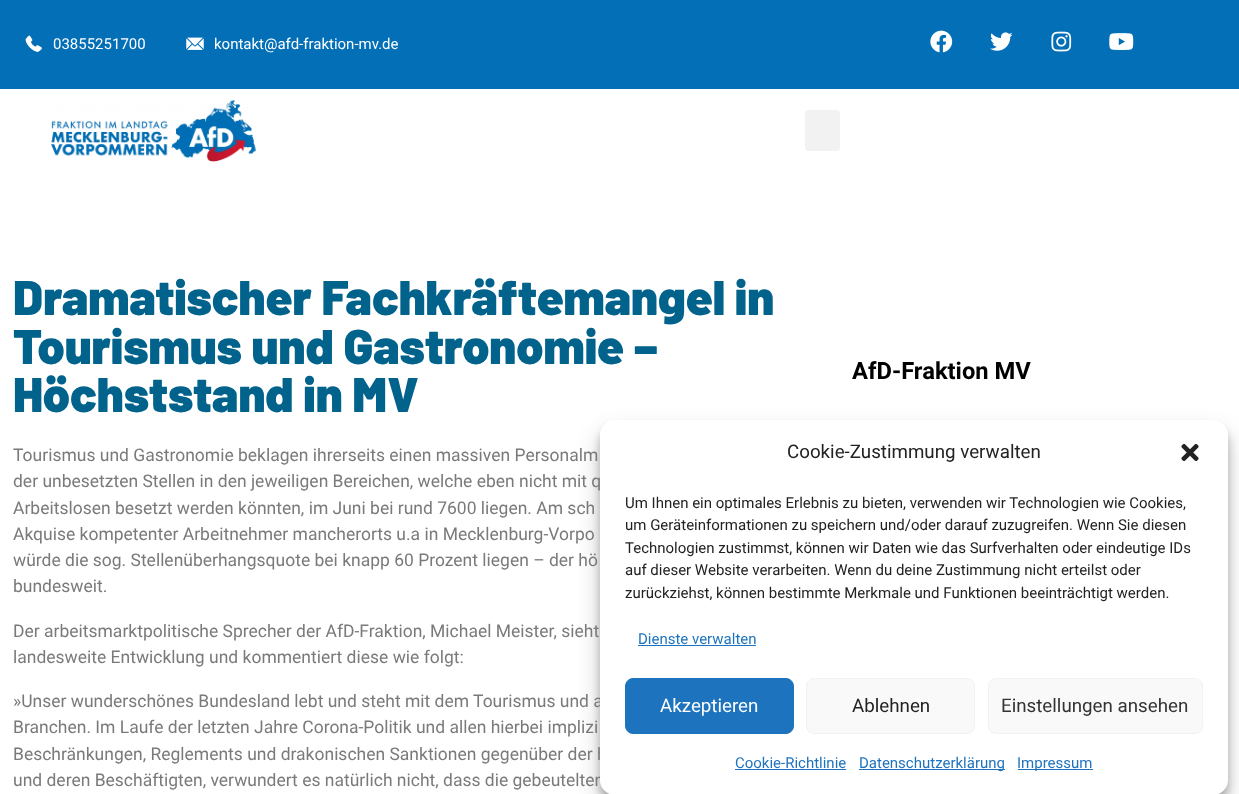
<!DOCTYPE html>
<meta charset="utf-8">
<style>body { margin: 0 } canvas { display: block }</style>
<canvas id="canvas" width="1239" height="794"></canvas>
<img id="img1" src="img_01.png" hidden>
<img id="img2" src="img_02.png" hidden>
<img id="img3" src="img_03.png" hidden>
<img id="img4" src="img_04.png" hidden>
<img id="img5" src="img_05.png" hidden>
<img id="img6" src="img_06.png" hidden>
<img id="img7" src="img_07.png" hidden>
<img id="img8" src="img_08.png" hidden>
<script>
window.onload = function () {
	const canvas = document.getElementById("canvas");
	const ctx = canvas.getContext("2d");
	ctx.miterLimit = 4;
	ctx.fontKerning = "normal";
	function txt(s, x, y) {
		ctx.fillText(s, x, y);
	}
	function fill(x, y, w, h) {
		ctx.fillRect(x, y, w, h);
	}
	function round(x, y, w, h, r) {
		ctx.beginPath();
		ctx.roundRect(x, y, w, h, r);
		ctx.fill();
	}
	function img(id, x, y, w, h) {
		ctx.drawImage(document.getElementById(id), x, y, w, h);
	}

	ctx.fillStyle = "#FFFFFF";
	fill(0, 0, 1239, 794);
	ctx.fillStyle = "#026FB7";
	fill(0, 0, 1239, 89);
	img("img1", 25, 35, 17, 17);
	img("img2", 186, 37, 18, 13);
	img("img3", 930, 30, 23, 23);
	img("img4", 990, 32, 23, 19);
	img("img5", 1051, 31, 21, 21);
	img("img6", 1109, 33, 25, 17);
	img("img7", 51, 100, 206, 62);
	ctx.fillStyle = "#F2F2F2";
	round(805, 110, 35, 41, 4);
	ctx.fillStyle = "rgba(0, 0, 0, 0.23)";
	ctx.filter = "blur(4px)";
	ctx.beginPath();
	ctx.roundRect(600, 428, 628, 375, 15);
	ctx.fill();
	ctx.filter = "none";
	ctx.fillStyle = "rgba(0, 0, 0, 0.19)";
	ctx.filter = "blur(12.5px)";
	ctx.beginPath();
	ctx.roundRect(600, 433, 628, 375, 15);
	ctx.fill();
	ctx.filter = "none";
	ctx.font = "15px Roboto";
	ctx.fillStyle = "#FFFFFF";
	txt("03855251700", 53, 49);
	txt("kontakt@afd-fraktion-mv.de", 214, 49);
	ctx.font = "900 48.75px Barlow";
	ctx.fillStyle = "#01628B";
	txt("Dramatischer Fachkräftemangel in", 13, 315);
	txt("Tourismus und Gastronomie –", 13, 364);
	txt("Höchststand in MV", 13, 412);
	ctx.font = "17.5px Roboto";
	ctx.fillStyle = "#7A7A7A";
	txt("Tourismus und Gastronomie beklagen ihrerseits einen massiven Personalm", 13, 461);
	txt("der unbesetzten Stellen in den jeweiligen Bereichen, welche eben nicht mit q", 13, 487);
	txt("Arbeitslosen besetzt werden könnten, im Juni bei rund 7600 liegen. Am sch", 13, 514);
	txt("Akquise kompetenter Arbeitnehmer mancherorts u.a in Mecklenburg-Vorpo", 13, 540);
	txt("würde die sog. Stellenüberhangsquote bei knapp 60 Prozent liegen – der hö", 13, 566);
	txt("bundesweit.", 13, 592);
	txt("Der arbeitsmarktpolitische Sprecher der AfD-Fraktion, Michael Meister, sieht", 13, 637);
	txt("landesweite Entwicklung und kommentiert diese wie folgt:", 13, 663);
	txt("»Unser wunderschönes Bundesland lebt und steht mit dem Tourismus und a", 13, 707);
	txt("Branchen. Im Laufe der letzten Jahre Corona-Politik und allen hierbei implizi", 13, 733);
	txt("Beschränkungen, Reglements und drakonischen Sanktionen gegenüber der h", 13, 760);
	txt("und deren Beschäftigten, verwundert es natürlich nicht, dass die gebeutelten", 13, 786);
	ctx.font = "bold 23.75px Roboto";
	ctx.fillStyle = "#000000";
	txt("AfD-Fraktion MV", 852, 379);
	ctx.fillStyle = "#FFFFFF";
	round(600, 420, 628, 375, 15);
	ctx.font = "18.75px Roboto";
	ctx.fillStyle = "#222222";
	txt("Cookie-Zustimmung verwalten", 787, 458);
	img("img8", 1181, 443, 18, 18);
	ctx.font = "15px Roboto";
	txt("Um Ihnen ein optimales Erlebnis zu bieten, verwenden wir Technologien wie Cookies,", 625, 508);
	txt("um Geräteinformationen zu speichern und/oder darauf zuzugreifen. Wenn Sie diesen", 625, 530);
	txt("Technologien zustimmst, können wir Daten wie das Surfverhalten oder eindeutige IDs", 625, 553);
	txt("auf dieser Website verarbeiten. Wenn du deine Zustimmung nicht erteilst oder", 625, 575);
	txt("zurückziehst, können bestimmte Merkmale und Funktionen beeinträchtigt werden.", 625, 598);
	ctx.fillStyle = "#1E73BE";
	txt("Dienste verwalten", 638, 644);
	fill(638, 645, 118, 1);
	ctx.beginPath();
	ctx.roundRect(625.5, 678.5, 168, 55, 7.5);
	ctx.fill();
	ctx.strokeStyle = "#1E73BE";
	ctx.stroke();
	ctx.font = "18.75px Roboto";
	ctx.fillStyle = "#FFFFFF";
	txt("Akzeptieren", 660, 712);
	ctx.fillStyle = "#F9F9F9";
	ctx.beginPath();
	ctx.roundRect(806.5, 678.5, 168, 55, 7.5);
	ctx.fill();
	ctx.strokeStyle = "#F2F2F2";
	ctx.stroke();
	ctx.fillStyle = "#222222";
	txt("Ablehnen", 852, 712);
	ctx.fillStyle = "#F9F9F9";
	ctx.beginPath();
	ctx.roundRect(988.5, 678.5, 214, 55, 7.5);
	ctx.fill();
	ctx.stroke();
	ctx.fillStyle = "#333333";
	txt("Einstellungen ansehen", 1001, 712);
	ctx.font = "15px Roboto";
	ctx.fillStyle = "#1E73BE";
	txt("Cookie-Richtlinie", 735, 768);
	fill(735, 769, 111, 1);
	fill(859, 769, 146, 1);
	txt("Datenschutzerklärung", 859, 768);
	fill(1018, 769, 75, 1);
	txt("Impressum", 1017, 768);
};
</script>
